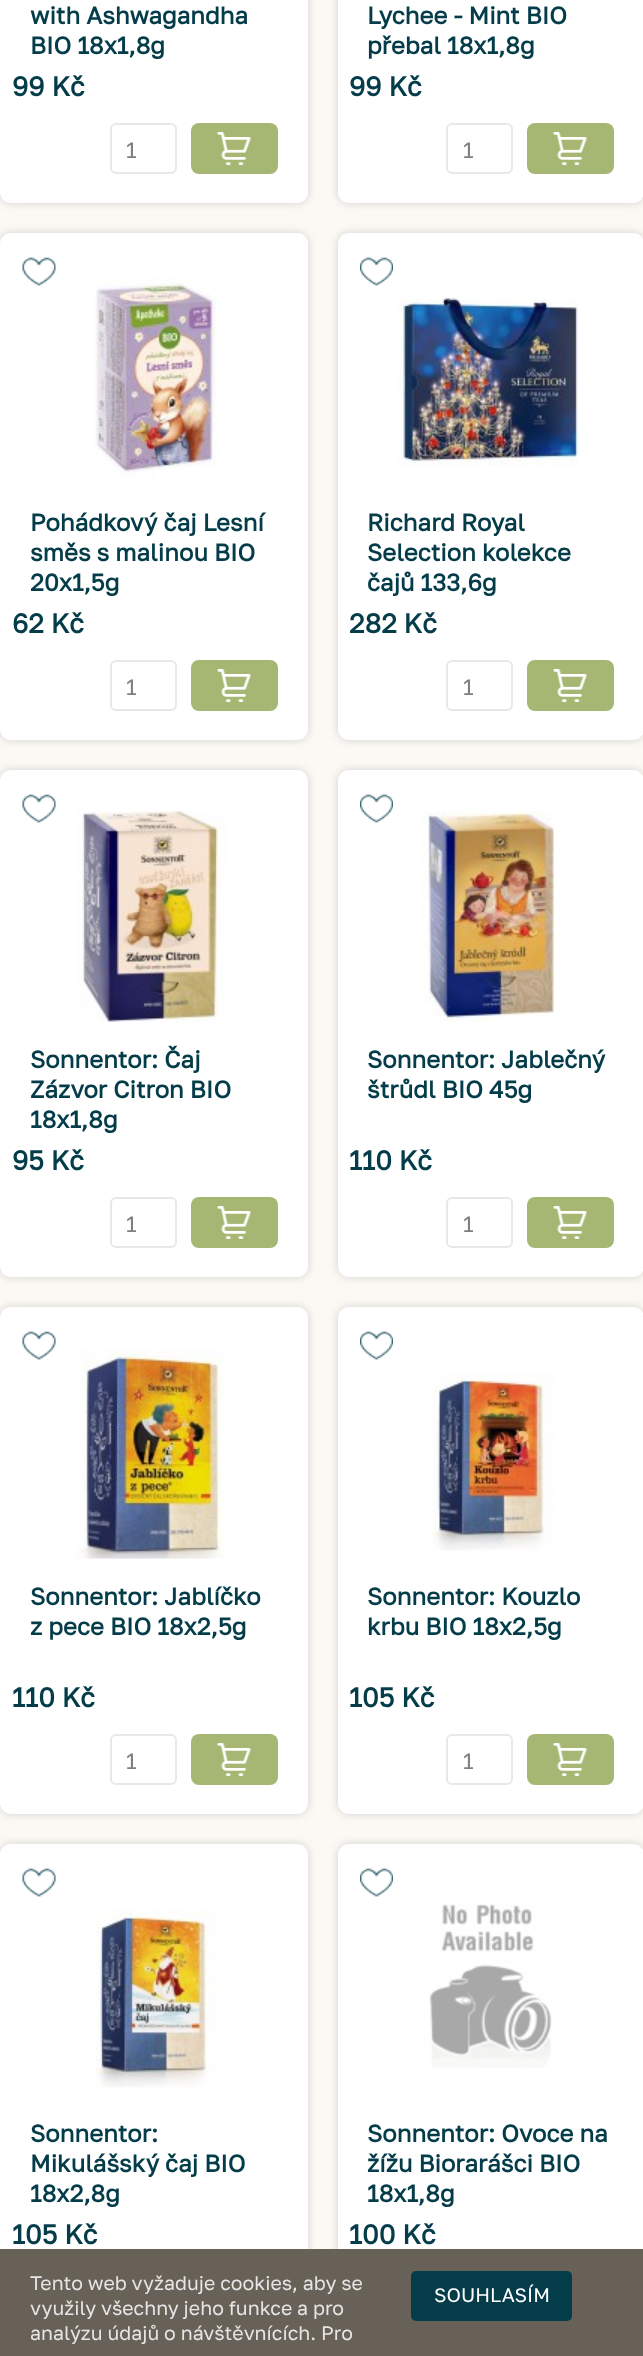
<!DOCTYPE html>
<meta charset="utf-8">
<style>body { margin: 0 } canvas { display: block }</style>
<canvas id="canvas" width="643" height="2356"></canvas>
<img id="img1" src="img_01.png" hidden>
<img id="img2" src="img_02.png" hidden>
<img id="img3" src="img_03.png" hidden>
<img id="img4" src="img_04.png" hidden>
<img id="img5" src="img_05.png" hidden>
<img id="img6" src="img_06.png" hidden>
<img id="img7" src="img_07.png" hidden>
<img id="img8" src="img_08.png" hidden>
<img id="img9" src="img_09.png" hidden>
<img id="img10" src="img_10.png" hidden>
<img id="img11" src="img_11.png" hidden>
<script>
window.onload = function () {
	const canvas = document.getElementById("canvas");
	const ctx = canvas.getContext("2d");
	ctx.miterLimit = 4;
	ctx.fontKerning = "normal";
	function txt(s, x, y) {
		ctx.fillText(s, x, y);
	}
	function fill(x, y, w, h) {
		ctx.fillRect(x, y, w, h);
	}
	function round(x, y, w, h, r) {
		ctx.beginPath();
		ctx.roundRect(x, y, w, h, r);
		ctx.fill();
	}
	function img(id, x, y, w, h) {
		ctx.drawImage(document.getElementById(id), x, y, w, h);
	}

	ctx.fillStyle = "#FCF9F4";
	fill(0, 0, 643, 2356);
	ctx.fillStyle = "rgba(192, 192, 192, 0.7)";
	ctx.filter = "blur(4.5px)";
	ctx.beginPath();
	ctx.roundRect(0, -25, 308, 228, 11);
	ctx.fill();
	ctx.filter = "none";
	ctx.fillStyle = "#FFFFFF";
	round(0, -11, 308, 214, 11);
	ctx.beginPath();
	ctx.roundRect(111, 124, 65, 49, 5);
	ctx.strokeStyle = "#E8E8E8";
	ctx.lineWidth = 2;
	ctx.stroke();
	ctx.fillStyle = "#A5B772";
	round(191, 123, 87, 51, 8);
	img("img1", 217, 132, 34, 33);
	ctx.fillStyle = "rgba(192, 192, 192, 0.7)";
	ctx.filter = "blur(4.5px)";
	ctx.beginPath();
	ctx.roundRect(338, -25, 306, 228, 11);
	ctx.fill();
	ctx.filter = "none";
	ctx.fillStyle = "#FFFFFF";
	round(338, -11, 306, 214, 11);
	ctx.beginPath();
	ctx.roundRect(447, 124, 65, 49, 5);
	ctx.stroke();
	ctx.fillStyle = "#A5B772";
	round(527, 123, 87, 51, 8);
	img("img1", 553, 132, 34, 33);
	ctx.fillStyle = "rgba(192, 192, 192, 0.7)";
	ctx.filter = "blur(4.5px)";
	ctx.beginPath();
	ctx.roundRect(0, 233, 308, 507, 11);
	ctx.fill();
	ctx.filter = "none";
	ctx.fillStyle = "#FFFFFF";
	round(0, 233, 308, 507, 11);
	img("img2", 22, 257, 34, 29);
	img("img3", 95, 275, 122, 203);
	ctx.beginPath();
	ctx.roundRect(111, 661, 65, 49, 5);
	ctx.stroke();
	ctx.fillStyle = "#A5B772";
	round(191, 660, 87, 51, 8);
	img("img1", 217, 669, 34, 33);
	ctx.fillStyle = "rgba(192, 192, 192, 0.7)";
	ctx.filter = "blur(4.5px)";
	ctx.beginPath();
	ctx.roundRect(338, 233, 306, 507, 11);
	ctx.fill();
	ctx.filter = "none";
	ctx.fillStyle = "#FFFFFF";
	round(338, 233, 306, 507, 11);
	img("img4", 360, 257, 33, 29);
	img("img5", 385, 298, 194, 169);
	ctx.beginPath();
	ctx.roundRect(447, 661, 65, 49, 5);
	ctx.stroke();
	ctx.fillStyle = "#A5B772";
	round(527, 660, 87, 51, 8);
	img("img1", 553, 669, 34, 33);
	ctx.fillStyle = "rgba(192, 192, 192, 0.7)";
	ctx.filter = "blur(4.5px)";
	ctx.beginPath();
	ctx.roundRect(0, 770, 308, 507, 11);
	ctx.fill();
	ctx.filter = "none";
	ctx.fillStyle = "#FFFFFF";
	round(0, 770, 308, 507, 11);
	img("img2", 22, 794, 34, 29);
	img("img6", 76, 811, 152, 211);
	ctx.beginPath();
	ctx.roundRect(111, 1198, 65, 49, 5);
	ctx.stroke();
	ctx.fillStyle = "#A5B772";
	round(191, 1197, 87, 51, 8);
	img("img1", 217, 1206, 34, 33);
	ctx.fillStyle = "rgba(192, 192, 192, 0.7)";
	ctx.filter = "blur(4.5px)";
	ctx.beginPath();
	ctx.roundRect(338, 770, 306, 507, 11);
	ctx.fill();
	ctx.filter = "none";
	ctx.fillStyle = "#FFFFFF";
	round(338, 770, 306, 507, 11);
	img("img4", 360, 794, 33, 29);
	img("img7", 421, 811, 134, 211);
	ctx.beginPath();
	ctx.roundRect(447, 1198, 65, 49, 5);
	ctx.stroke();
	ctx.fillStyle = "#A5B772";
	round(527, 1197, 87, 51, 8);
	img("img1", 553, 1206, 34, 33);
	ctx.fillStyle = "rgba(192, 192, 192, 0.7)";
	ctx.filter = "blur(4.5px)";
	ctx.beginPath();
	ctx.roundRect(0, 1307, 308, 507, 11);
	ctx.fill();
	ctx.filter = "none";
	ctx.fillStyle = "#FFFFFF";
	round(0, 1307, 308, 507, 11);
	img("img2", 22, 1331, 34, 29);
	img("img8", 73, 1348, 152, 211);
	ctx.beginPath();
	ctx.roundRect(111, 1735, 65, 49, 5);
	ctx.stroke();
	ctx.fillStyle = "#A5B772";
	round(191, 1734, 87, 51, 8);
	img("img1", 217, 1743, 34, 33);
	ctx.fillStyle = "rgba(192, 192, 192, 0.7)";
	ctx.filter = "blur(4.5px)";
	ctx.beginPath();
	ctx.roundRect(338, 1307, 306, 507, 11);
	ctx.fill();
	ctx.filter = "none";
	ctx.fillStyle = "#FFFFFF";
	round(338, 1307, 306, 507, 11);
	img("img4", 360, 1331, 33, 29);
	img("img9", 432, 1372, 122, 179);
	ctx.beginPath();
	ctx.roundRect(447, 1735, 65, 49, 5);
	ctx.stroke();
	ctx.fillStyle = "#A5B772";
	round(527, 1734, 87, 51, 8);
	img("img1", 553, 1743, 34, 33);
	ctx.fillStyle = "rgba(192, 192, 192, 0.7)";
	ctx.filter = "blur(4.5px)";
	ctx.beginPath();
	ctx.roundRect(0, 1844, 308, 507, 11);
	ctx.fill();
	ctx.filter = "none";
	ctx.fillStyle = "#FFFFFF";
	round(0, 1844, 308, 507, 11);
	img("img2", 22, 1868, 34, 29);
	img("img10", 95, 1909, 122, 179);
	ctx.fillStyle = "rgba(192, 192, 192, 0.7)";
	ctx.filter = "blur(4.5px)";
	ctx.beginPath();
	ctx.roundRect(338, 1844, 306, 507, 11);
	ctx.fill();
	ctx.filter = "none";
	ctx.fillStyle = "#FFFFFF";
	round(338, 1844, 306, 507, 11);
	img("img4", 360, 1868, 33, 29);
	img("img11", 429, 1904, 123, 165);
	ctx.fillStyle = "#676157";
	fill(0, 2249, 643, 107);
	ctx.fillStyle = "#043C49";
	round(411, 2271, 161, 50, 5);
	ctx.font = "bold 24px Golos Text";
	txt("with Ashwagandha", 30, 24);
	txt("BIO 18x1,8g", 30, 54);
	ctx.font = "bold 27px Golos Text";
	txt("99 Kč", 12, 96);
	ctx.font = "22px Golos Text";
	ctx.fillStyle = "#808080";
	txt("1", 126, 158);
	ctx.font = "bold 24px Golos Text";
	ctx.fillStyle = "#043C49";
	txt("Lychee - Mint BIO", 367, 24);
	txt("přebal 18x1,8g", 367, 54);
	ctx.font = "bold 27px Golos Text";
	txt("99 Kč", 349, 96);
	ctx.font = "22px Golos Text";
	ctx.fillStyle = "#808080";
	txt("1", 463, 158);
	ctx.font = "bold 24px Golos Text";
	ctx.fillStyle = "#043C49";
	txt("Pohádkový čaj Lesní", 30, 531);
	txt("směs s malinou BIO", 30, 561);
	txt("20x1,5g", 30, 591);
	ctx.font = "bold 27px Golos Text";
	txt("62 Kč", 12, 633);
	ctx.font = "22px Golos Text";
	ctx.fillStyle = "#808080";
	txt("1", 126, 695);
	ctx.font = "bold 24px Golos Text";
	ctx.fillStyle = "#043C49";
	txt("Richard Royal", 367, 531);
	txt("Selection kolekce", 367, 561);
	ctx.save();
	ctx.beginPath();
	ctx.rect(368, 507, 246, 95);
	ctx.clip();
	txt("čajů 133,6g", 367, 591);
	ctx.restore();
	ctx.font = "bold 27px Golos Text";
	txt("282 Kč", 349, 633);
	ctx.font = "22px Golos Text";
	ctx.fillStyle = "#808080";
	txt("1", 463, 695);
	ctx.font = "bold 24px Golos Text";
	ctx.fillStyle = "#043C49";
	txt("Sonnentor: Čaj", 30, 1068);
	txt("Zázvor Citron BIO", 30, 1098);
	txt("18x1,8g", 30, 1128);
	ctx.font = "bold 27px Golos Text";
	txt("95 Kč", 12, 1170);
	ctx.font = "22px Golos Text";
	ctx.fillStyle = "#808080";
	txt("1", 126, 1232);
	ctx.font = "bold 24px Golos Text";
	ctx.fillStyle = "#043C49";
	txt("Sonnentor: Jablečný", 367, 1068);
	txt("štrůdl BIO 45g", 367, 1098);
	ctx.font = "bold 27px Golos Text";
	txt("110 Kč", 349, 1170);
	ctx.font = "22px Golos Text";
	ctx.fillStyle = "#808080";
	txt("1", 463, 1232);
	ctx.font = "bold 24px Golos Text";
	ctx.fillStyle = "#043C49";
	txt("Sonnentor: Jablíčko", 30, 1605);
	txt("z pece BIO 18x2,5g", 30, 1635);
	ctx.font = "bold 27px Golos Text";
	txt("110 Kč", 12, 1707);
	ctx.font = "22px Golos Text";
	ctx.fillStyle = "#808080";
	txt("1", 126, 1769);
	ctx.font = "bold 24px Golos Text";
	ctx.fillStyle = "#043C49";
	txt("Sonnentor: Kouzlo", 367, 1605);
	txt("krbu BIO 18x2,5g", 367, 1635);
	ctx.font = "bold 27px Golos Text";
	txt("105 Kč", 349, 1707);
	ctx.font = "22px Golos Text";
	ctx.fillStyle = "#808080";
	txt("1", 463, 1769);
	ctx.font = "bold 24px Golos Text";
	ctx.fillStyle = "#043C49";
	txt("Sonnentor:", 30, 2142);
	txt("Mikulášský čaj BIO", 30, 2172);
	txt("18x2,8g", 30, 2202);
	ctx.font = "bold 27px Golos Text";
	txt("105 Kč", 12, 2244);
	ctx.font = "bold 24px Golos Text";
	txt("Sonnentor: Ovoce na", 367, 2142);
	txt("žížu Biorarášci BIO", 367, 2172);
	txt("18x1,8g", 367, 2202);
	ctx.font = "bold 27px Golos Text";
	txt("100 Kč", 349, 2244);
	ctx.font = "19.5px Golos Text";
	ctx.fillStyle = "#E6E6E6";
	txt("Tento web vyžaduje cookies, aby se", 30, 2290);
	txt("využily všechny jeho funkce a pro", 30, 2315);
	txt("analýzu údajů o návštěvnících. Pro", 30, 2340);
	ctx.fillStyle = "#FFFFFF";
	txt("SOUHLASÍM", 434, 2302);
};
</script>
